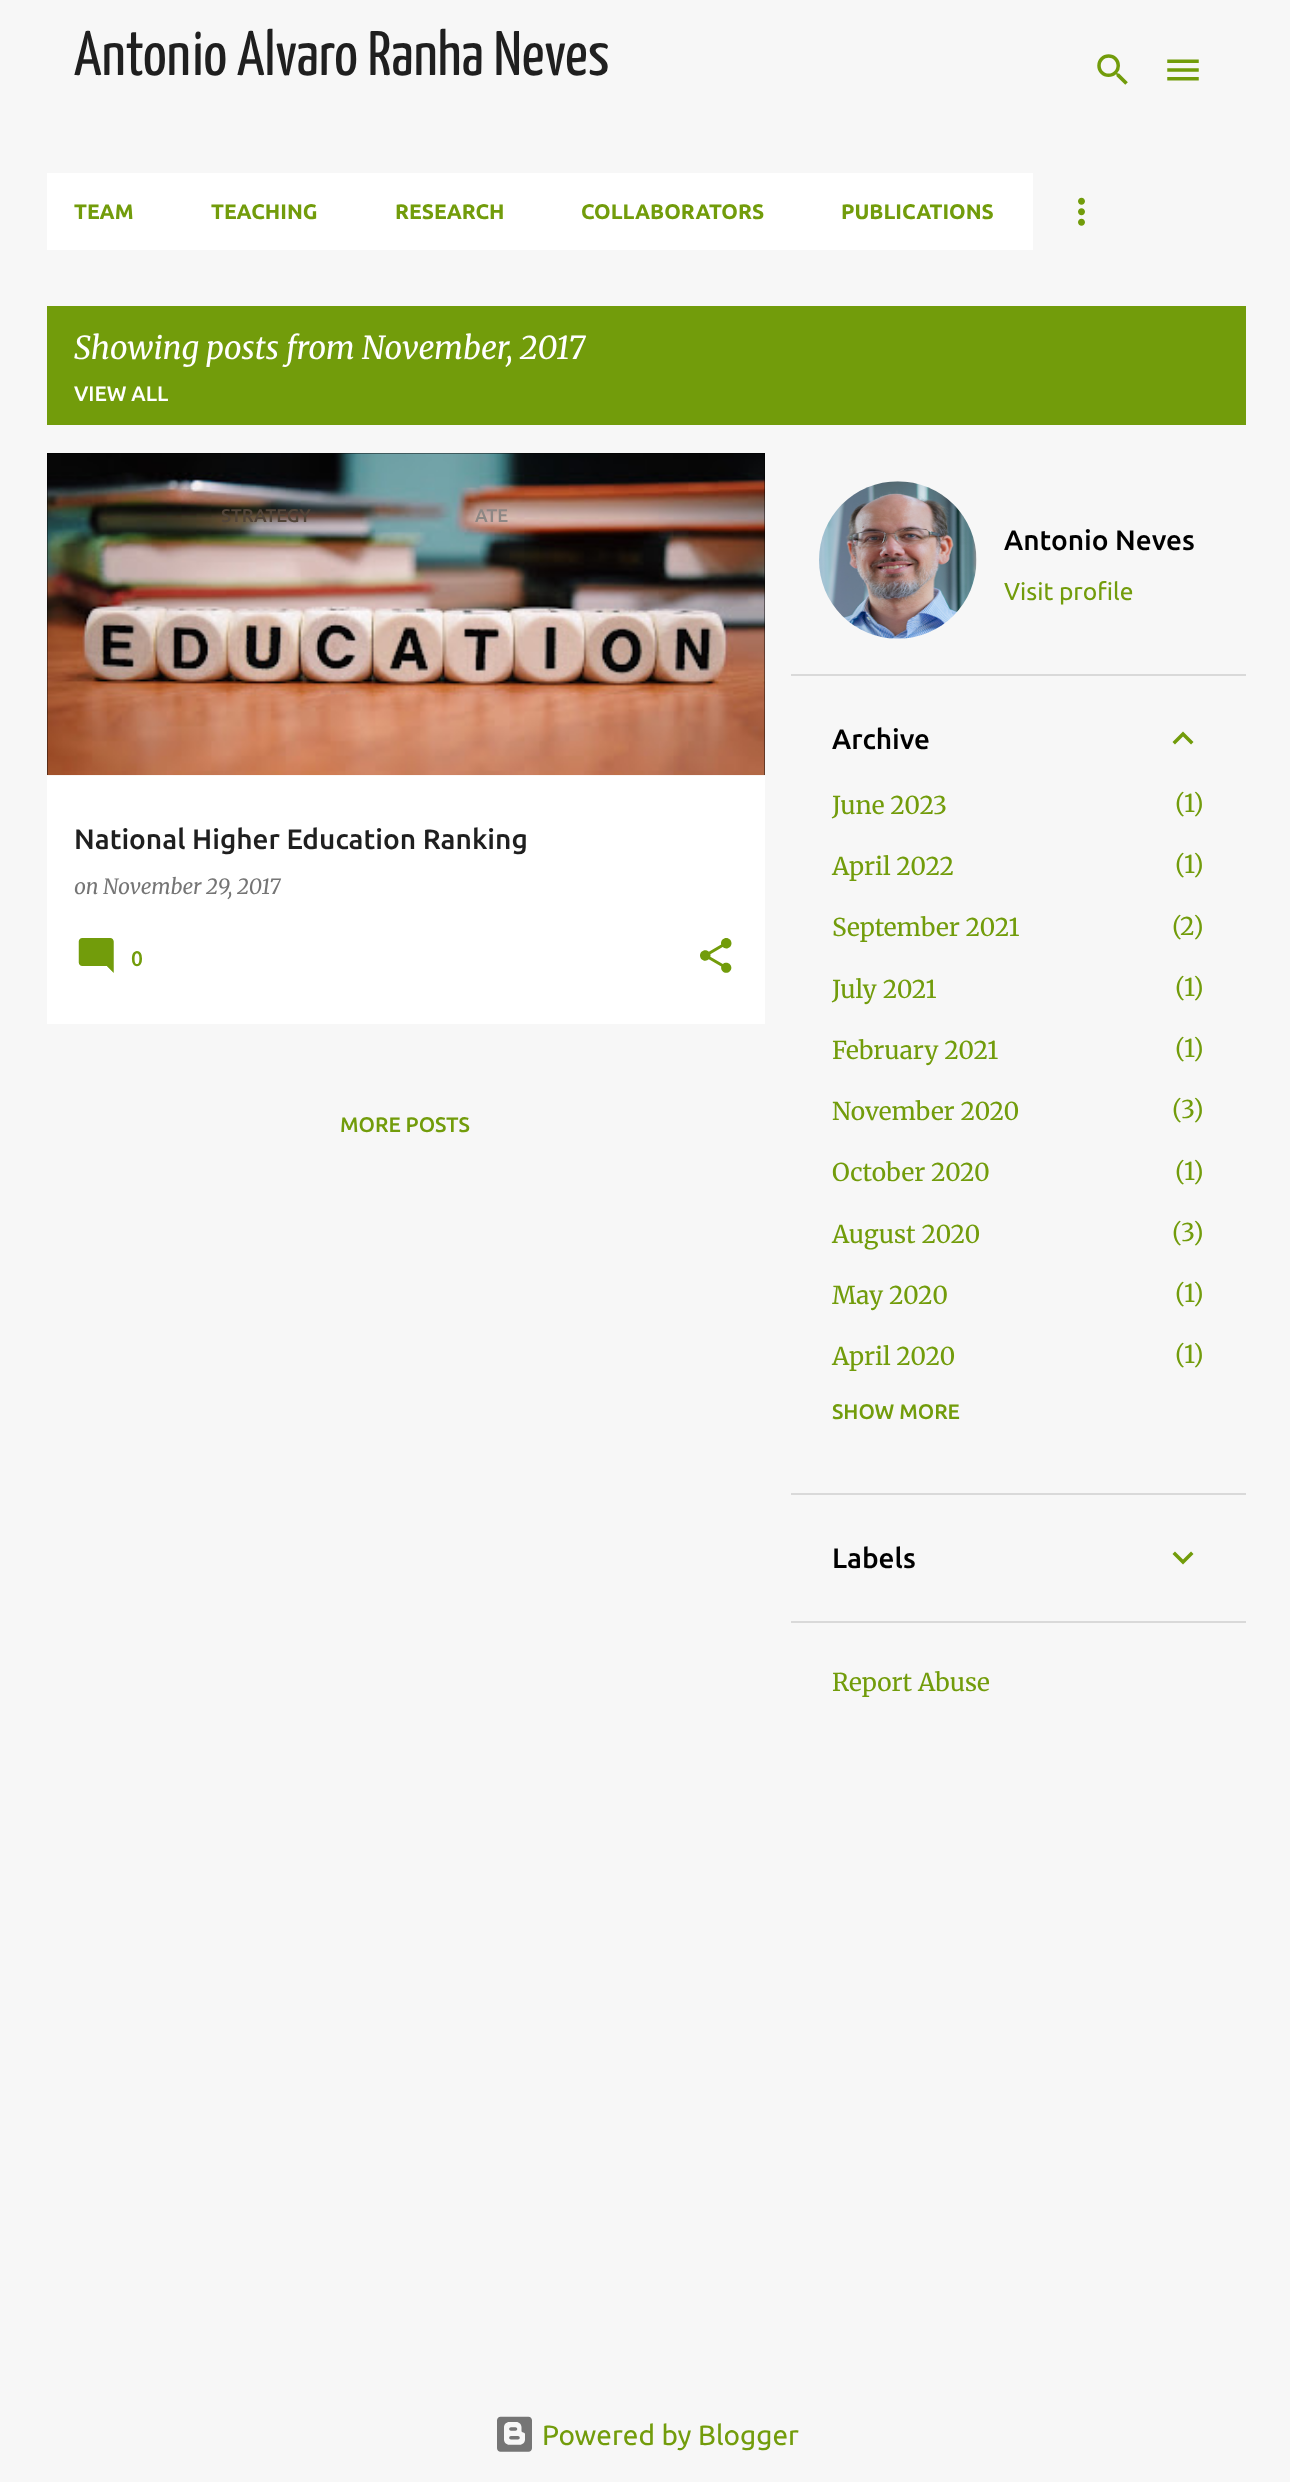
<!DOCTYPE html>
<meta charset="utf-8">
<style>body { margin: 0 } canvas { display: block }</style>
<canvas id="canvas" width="1290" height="2482"></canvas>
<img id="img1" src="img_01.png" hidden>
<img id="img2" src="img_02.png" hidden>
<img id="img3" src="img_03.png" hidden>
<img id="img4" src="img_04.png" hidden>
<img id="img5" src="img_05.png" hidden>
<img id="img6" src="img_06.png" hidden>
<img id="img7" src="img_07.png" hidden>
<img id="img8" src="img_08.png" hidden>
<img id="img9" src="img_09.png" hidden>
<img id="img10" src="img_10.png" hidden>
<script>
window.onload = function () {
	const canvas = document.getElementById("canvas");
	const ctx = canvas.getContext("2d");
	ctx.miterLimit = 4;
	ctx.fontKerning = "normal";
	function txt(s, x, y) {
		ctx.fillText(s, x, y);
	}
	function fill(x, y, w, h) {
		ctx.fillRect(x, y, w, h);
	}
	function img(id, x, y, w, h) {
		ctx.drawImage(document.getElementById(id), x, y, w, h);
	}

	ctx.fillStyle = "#F7F7F7";
	fill(0, 0, 1290, 2482);
	img("img1", 1097, 54, 31, 31);
	img("img2", 1167, 59, 32, 22);
	ctx.fillStyle = "#FFFFFF";
	fill(47, 173, 986, 77);
	img("img3", 1078, 197, 7, 29);
	ctx.fillStyle = "#729C0B";
	fill(47, 306, 1199, 119);
	ctx.fillStyle = "#FFFFFF";
	fill(47, 775, 718, 249);
	ctx.fillStyle = "#000000";
	fill(47, 453, 718, 322);
	img("img4", 47, 453, 718, 323);
	img("img5", 78, 938, 36, 35);
	img("img6", 700, 938, 32, 35);
	img("img7", 819, 481, 158, 158);
	ctx.fillStyle = "#D9D9D9";
	fill(791, 674, 455, 2);
	img("img8", 1172, 731, 22, 14);
	fill(791, 1493, 455, 2);
	img("img9", 1172, 1551, 22, 14);
	fill(791, 1621, 455, 2);
	img("img10", 497, 2416, 35, 36);
	ctx.font = "200 63px Yanone Kaffeesatz";
	ctx.fillStyle = "#1F1F1F";
	txt("Antonio Alvaro Ranha Neves", 74, 75);
	ctx.font = "bold 21px Ubuntu";
	ctx.fillStyle = "#729C0B";
	txt("TEAM", 74, 219);
	txt("TEACHING", 211, 219);
	txt("RESEARCH", 395, 219);
	txt("COLLABORATORS", 581, 219);
	txt("PUBLICATIONS", 841, 219);
	ctx.font = "italic 31.5px Merriweather";
	ctx.fillStyle = "#FFFFFF";
	txt("Showing posts from November, 2017", 74, 359);
	ctx.font = "500 21px Ubuntu";
	txt("VIEW ALL", 74, 401);
	ctx.font = "500 18.5px Ubuntu";
	ctx.fillStyle = "#514439";
	txt("STRATEGY", 221, 522);
	ctx.fillStyle = "#8D8784";
	txt("ATE", 475, 522);
	ctx.font = "italic 21px Merriweather";
	ctx.fillStyle = "#757575";
	txt("on November 29, 2017", 74, 894);
	ctx.font = "500 28px Ubuntu";
	ctx.fillStyle = "#1F1F1F";
	txt("National Higher Education Ranking", 74, 849);
	ctx.font = "500 21px Ubuntu";
	ctx.fillStyle = "#729C0B";
	txt("0", 131, 966);
	txt("MORE POSTS", 340, 1132);
	ctx.font = "500 28px Ubuntu";
	ctx.fillStyle = "#000000";
	txt("Antonio Neves", 1004, 550);
	ctx.font = "24.5px Ubuntu";
	ctx.fillStyle = "#729C0B";
	txt("Visit profile", 1004, 600);
	ctx.font = "500 28px Ubuntu";
	ctx.fillStyle = "#000000";
	txt("Archive", 832, 749);
	ctx.font = "300 24.5px Merriweather";
	ctx.fillStyle = "#729C0B";
	txt("June 2023", 832, 814);
	txt("(", 1175, 812);
	txt("1", 1184, 812);
	txt(")", 1193, 812);
	txt("April 2022", 832, 875);
	txt("(", 1175, 873);
	txt("1", 1184, 873);
	txt(")", 1193, 873);
	txt("September 2021", 832, 936);
	txt("(", 1172, 935);
	txt("2", 1180, 935);
	txt(")", 1193, 935);
	txt("July 2021", 832, 998);
	txt("(", 1175, 996);
	txt("1", 1184, 996);
	txt(")", 1193, 996);
	txt("February 2021", 832, 1059);
	txt("(", 1175, 1057);
	txt("1", 1184, 1057);
	txt(")", 1193, 1057);
	txt("November 2020", 832, 1120);
	txt("(", 1172, 1118);
	txt("3", 1181, 1118);
	txt(")", 1193, 1118);
	txt("October 2020", 832, 1181);
	txt("(", 1175, 1180);
	txt("1", 1184, 1180);
	txt(")", 1193, 1180);
	txt("August 2020", 832, 1243);
	txt("(", 1172, 1241);
	txt("3", 1181, 1241);
	txt(")", 1193, 1241);
	txt("May 2020", 832, 1304);
	txt("(", 1175, 1302);
	txt("1", 1184, 1302);
	txt(")", 1193, 1302);
	txt("April 2020", 832, 1365);
	txt("(", 1175, 1363);
	txt("1", 1184, 1363);
	txt(")", 1193, 1363);
	ctx.font = "500 21px Ubuntu";
	txt("SHOW MORE", 832, 1419);
	ctx.font = "500 28px Ubuntu";
	ctx.fillStyle = "#000000";
	txt("Labels", 832, 1568);
	ctx.font = "300 24.5px Merriweather";
	ctx.fillStyle = "#729C0B";
	txt("Report Abuse", 832, 1691);
	ctx.font = "28px Ubuntu";
	txt("Powered by Blogger", 542, 2445);
};
</script>
